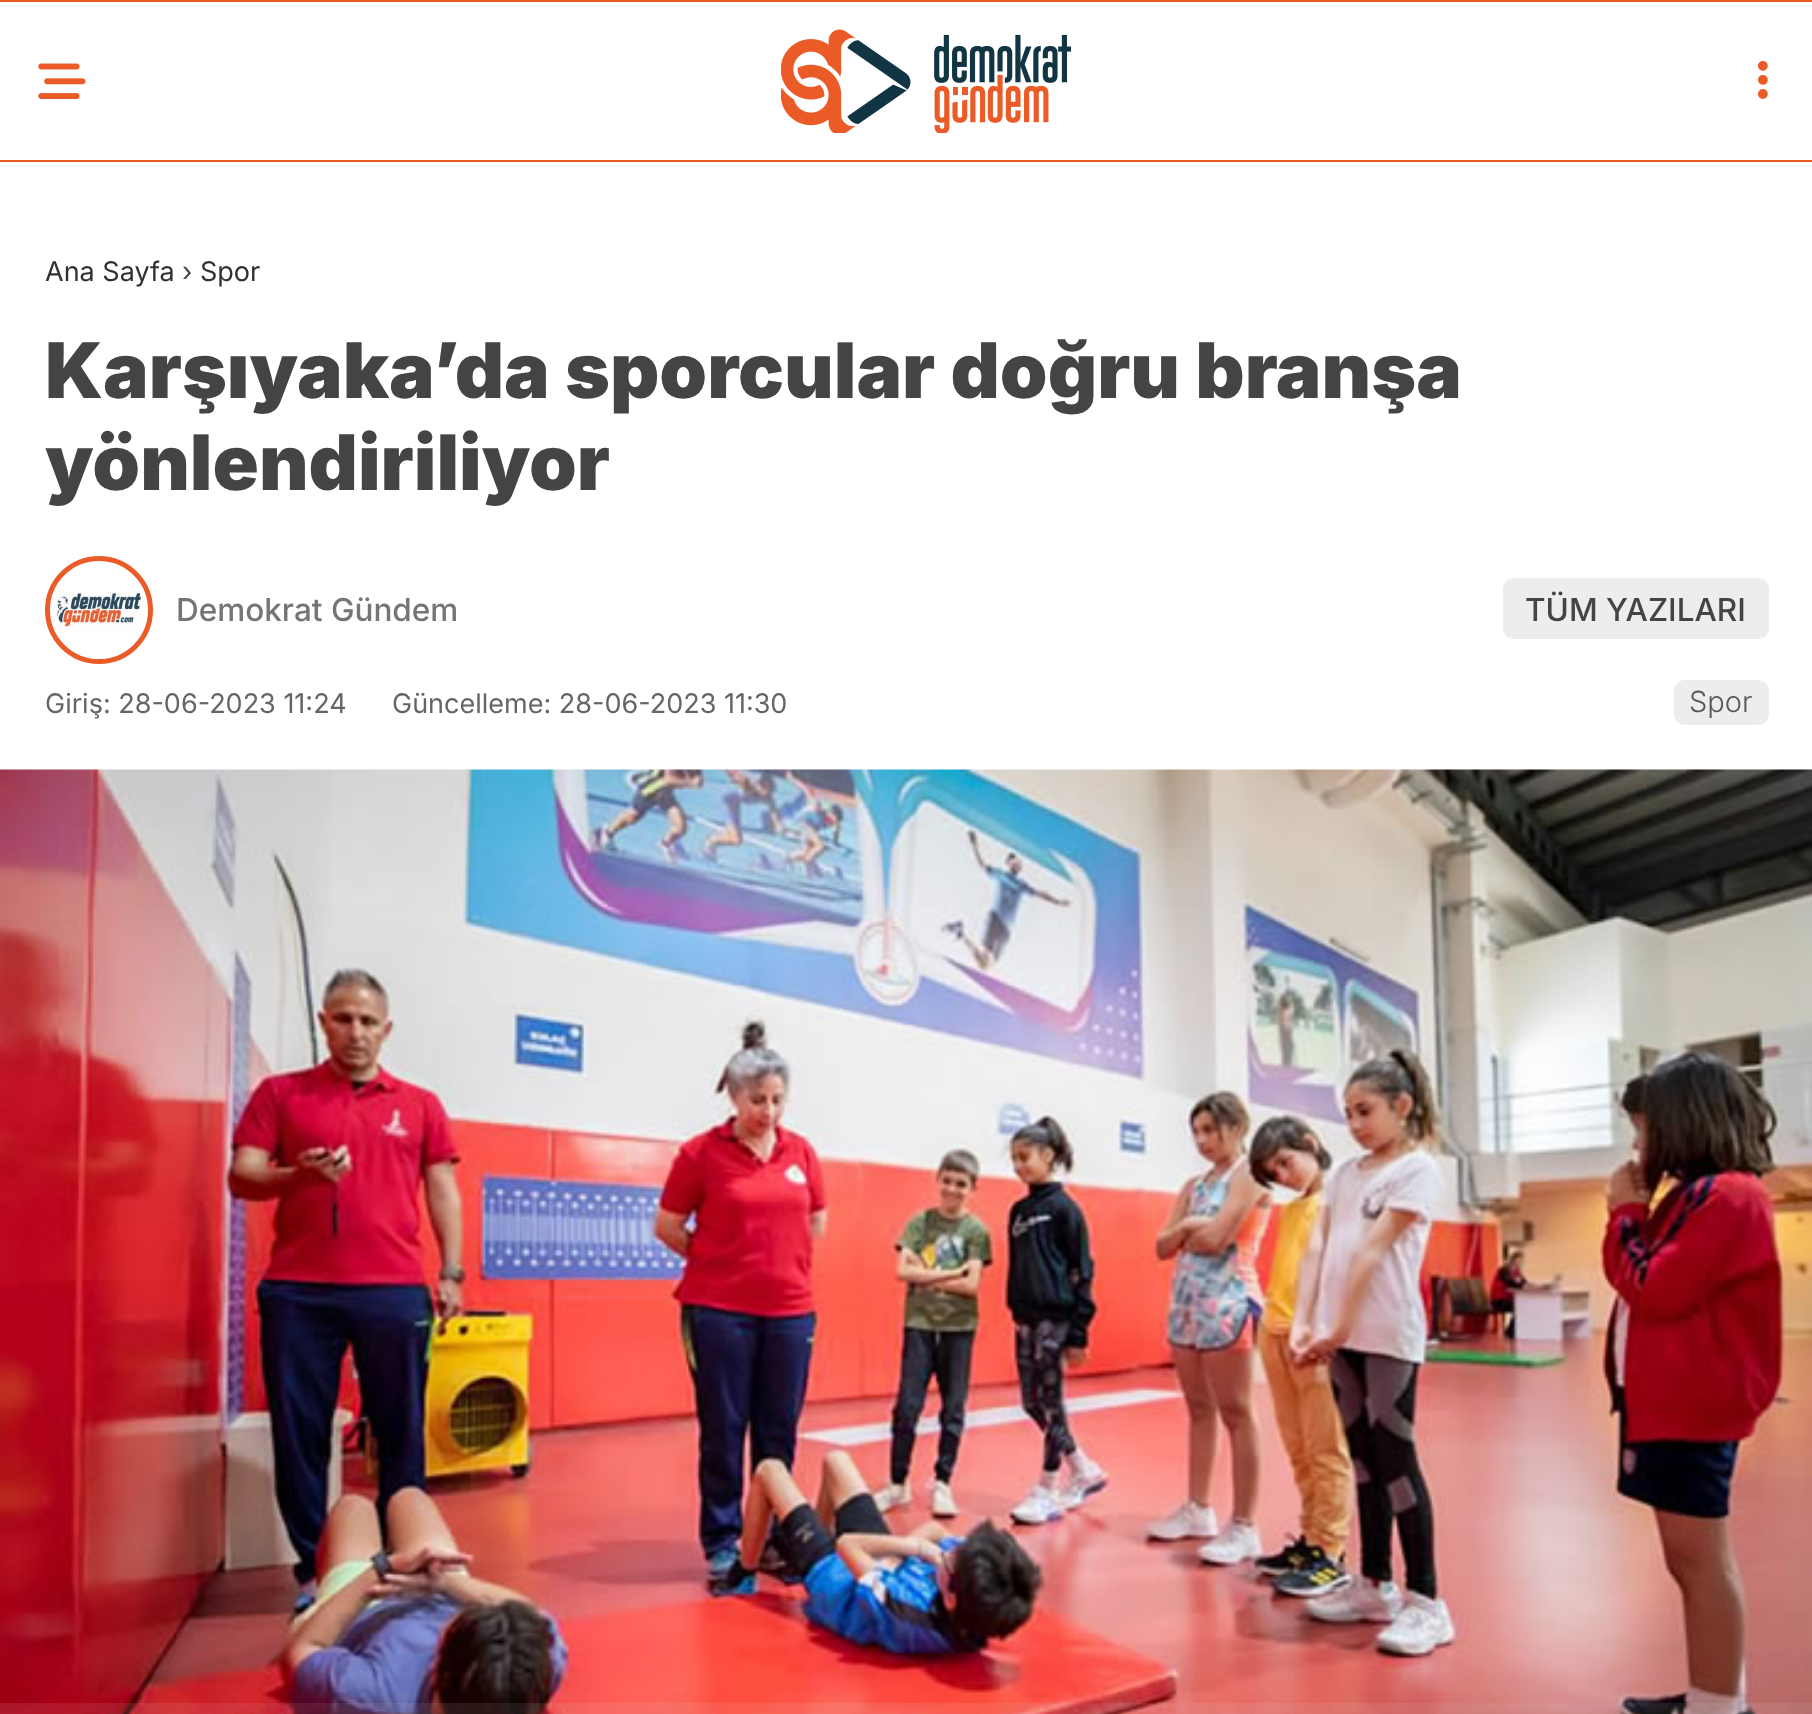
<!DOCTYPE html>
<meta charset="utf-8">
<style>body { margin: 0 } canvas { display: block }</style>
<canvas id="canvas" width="1812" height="1714"></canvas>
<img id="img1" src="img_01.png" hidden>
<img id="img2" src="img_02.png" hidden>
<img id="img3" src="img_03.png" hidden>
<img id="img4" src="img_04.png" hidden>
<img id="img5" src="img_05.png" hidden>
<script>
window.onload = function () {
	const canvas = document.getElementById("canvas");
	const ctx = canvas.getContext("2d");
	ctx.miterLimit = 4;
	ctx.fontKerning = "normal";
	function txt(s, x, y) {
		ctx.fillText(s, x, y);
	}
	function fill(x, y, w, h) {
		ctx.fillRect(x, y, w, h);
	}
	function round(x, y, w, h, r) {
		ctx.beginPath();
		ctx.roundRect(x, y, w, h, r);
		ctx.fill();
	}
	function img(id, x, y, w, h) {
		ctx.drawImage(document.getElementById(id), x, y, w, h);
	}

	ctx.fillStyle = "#FFFFFF";
	fill(0, 0, 1812, 1714);
	ctx.fillStyle = "#EB5B28";
	fill(0, 0, 1812, 2);
	fill(0, 160, 1812, 2);
	img("img1", 38, 63, 48, 36);
	img("img2", 781, 29, 290, 104);
	img("img3", 1758, 60, 10, 39);
	ctx.beginPath();
	ctx.arc(99, 610, 51.5, 0, Math.PI * 2);
	ctx.strokeStyle = "#EB5B28";
	ctx.lineWidth = 5;
	ctx.stroke();
	img("img4", 54, 590, 89, 42);
	ctx.fillStyle = "#EDEDED";
	round(1503, 578, 266, 61, 11);
	round(1674, 680, 95, 45, 11);
	img("img5", 0, 769, 1812, 945);
	ctx.fillStyle = "rgba(213, 213, 213, 0.1)";
	fill(0, 1703, 1812, 11);
	ctx.font = "27px Inter";
	ctx.fillStyle = "#313131";
	txt("Ana Sayfa", 45, 281);
	ctx.fillStyle = "#444444";
	txt("›", 182, 281);
	ctx.fillStyle = "#313131";
	txt("Spor", 200, 281);
	ctx.font = "900 76.5px Inter";
	ctx.fillStyle = "#444444";
	txt("Karşıyaka’da sporcular doğru branşa", 45, 398);
	txt("yönlendiriliyor", 45, 490);
	ctx.font = "500 31.5px Inter";
	ctx.fillStyle = "#757575";
	txt("Demokrat Gündem", 176, 621);
	ctx.fillStyle = "#444444";
	txt("TÜM YAZILARI", 1525, 621);
	ctx.font = "27px Inter";
	ctx.fillStyle = "#656565";
	txt("Giriş: 28-06-2023 11:24", 45, 713);
	txt("Güncelleme: 28-06-2023 11:30", 392, 713);
	ctx.font = "300 29px Inter";
	ctx.fillStyle = "#575757";
	txt("Spor", 1689, 712);
};
</script>
